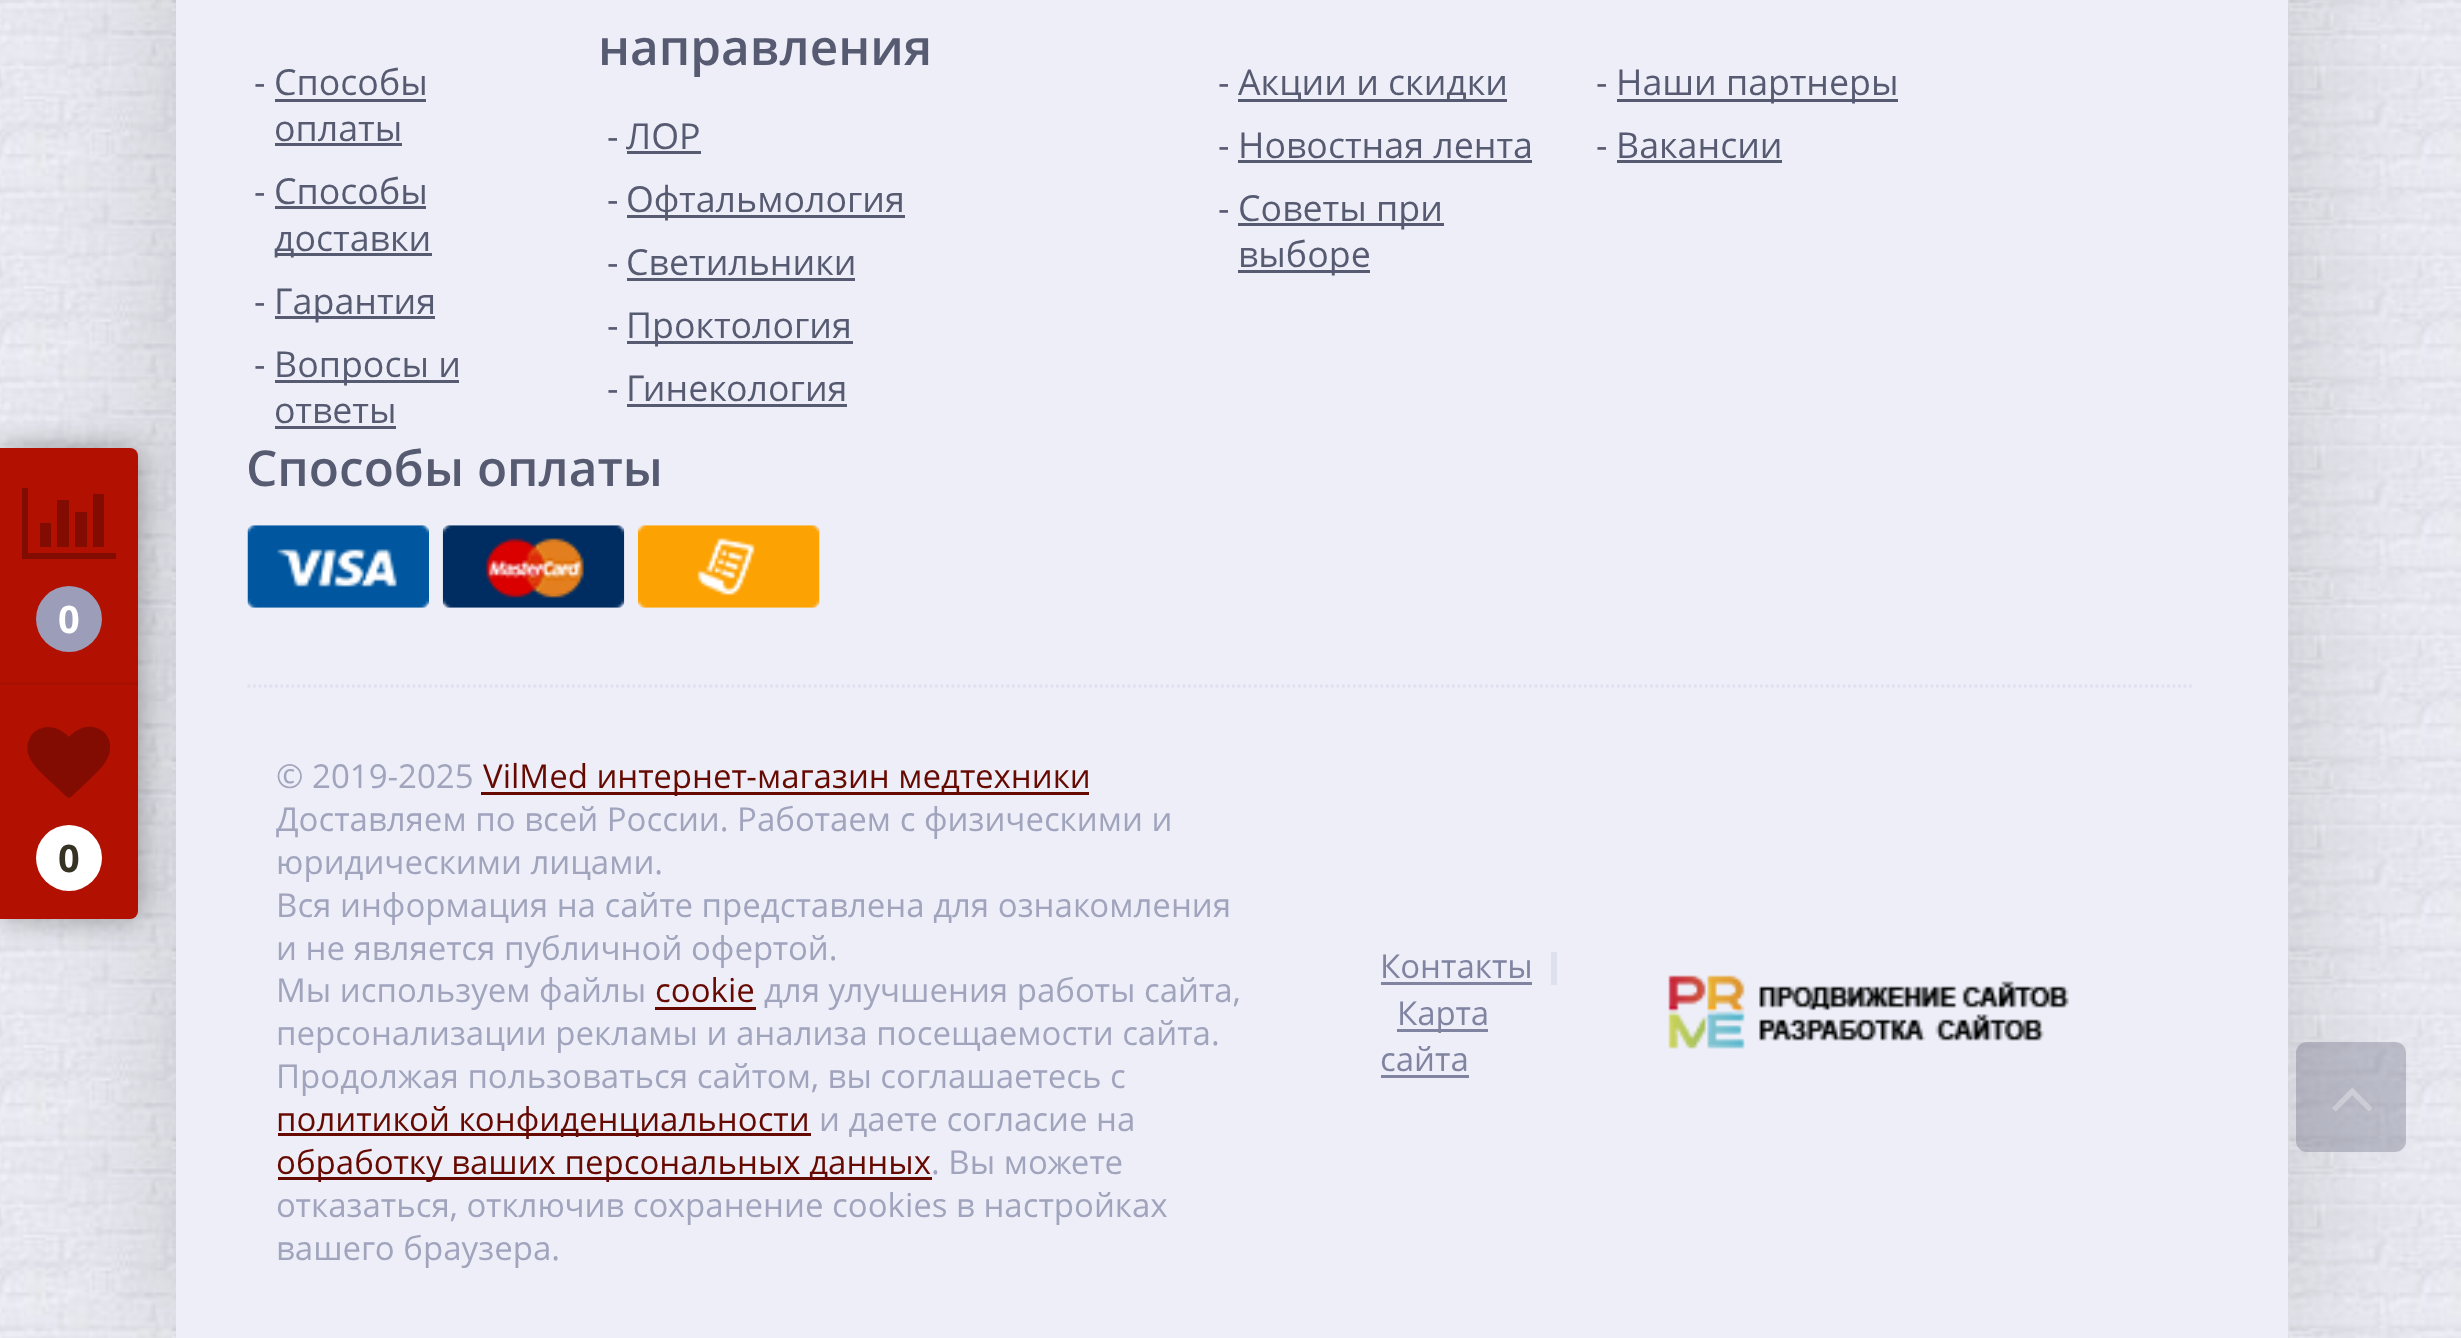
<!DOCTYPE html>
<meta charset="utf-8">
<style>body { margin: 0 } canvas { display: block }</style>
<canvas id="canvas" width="2461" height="1338"></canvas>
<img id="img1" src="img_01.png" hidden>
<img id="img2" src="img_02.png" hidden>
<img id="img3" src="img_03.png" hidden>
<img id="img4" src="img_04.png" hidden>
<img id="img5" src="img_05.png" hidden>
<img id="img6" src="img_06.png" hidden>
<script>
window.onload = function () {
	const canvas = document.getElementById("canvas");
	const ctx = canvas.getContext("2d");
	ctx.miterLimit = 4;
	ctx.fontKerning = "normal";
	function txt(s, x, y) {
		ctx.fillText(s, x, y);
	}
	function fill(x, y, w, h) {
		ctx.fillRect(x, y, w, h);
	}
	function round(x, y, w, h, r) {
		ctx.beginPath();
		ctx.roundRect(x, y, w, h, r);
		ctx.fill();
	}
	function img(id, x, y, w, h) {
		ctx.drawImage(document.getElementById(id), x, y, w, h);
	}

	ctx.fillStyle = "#FFFFFF";
	fill(0, 0, 2461, 1338);
	img("img1", 0, 0, 2461, 1338);
	ctx.fillStyle = "rgba(0, 0, 0, 0.15)";
	ctx.filter = "blur(70px)";
	ctx.beginPath();
	ctx.rect(176, -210, 2112, 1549);
	ctx.fill();
	ctx.filter = "none";
	ctx.fillStyle = "#EDEEF8";
	fill(176, 0, 2112, 1338);
	ctx.fillStyle = "rgba(0, 0, 0, 0.36)";
	ctx.filter = "blur(16.5px)";
	ctx.beginPath();
	ctx.roundRect(0, 448, 138, 471, 8);
	ctx.fill();
	ctx.filter = "none";
	ctx.fillStyle = "#B21001";
	ctx.beginPath();
	ctx.roundRect(0, 448, 138, 471, [0, 8, 8, 0]);
	ctx.fill();
	ctx.fillStyle = "#A90F01";
	fill(0, 682, 138, 3);
	ctx.fillStyle = "#820C01";
	ctx.beginPath();
	ctx.moveTo(51, 523);
	ctx.lineTo(51, 547);
	ctx.lineTo(40, 547);
	ctx.lineTo(40, 523);
	ctx.closePath();
	ctx.moveTo(69, 500);
	ctx.lineTo(69, 547);
	ctx.lineTo(57, 547);
	ctx.lineTo(57, 500);
	ctx.closePath();
	ctx.moveTo(116, 553);
	ctx.lineTo(116, 559);
	ctx.lineTo(22, 559);
	ctx.lineTo(22, 488);
	ctx.lineTo(28, 488);
	ctx.lineTo(28, 553);
	ctx.closePath();
	ctx.moveTo(87, 512);
	ctx.lineTo(87, 547);
	ctx.lineTo(75, 547);
	ctx.lineTo(75, 512);
	ctx.closePath();
	ctx.moveTo(104, 494);
	ctx.lineTo(104, 547);
	ctx.lineTo(93, 547);
	ctx.lineTo(93, 494);
	ctx.closePath();
	ctx.fill();
	ctx.fillStyle = "#9B9DB9";
	ctx.beginPath();
	ctx.arc(69, 619, 33, 0, Math.PI * 2);
	ctx.fill();
	ctx.fillStyle = "#820C01";
	ctx.beginPath();
	ctx.moveTo(71, 797);
	ctx.bezierCurveTo(70, 798, 68, 798, 67, 797);
	ctx.lineTo(52, 783);
	ctx.bezierCurveTo(41, 772, 20, 757, 30, 738);
	ctx.bezierCurveTo(33, 731, 40, 728, 47, 727);
	ctx.bezierCurveTo(56, 727, 63, 731, 69, 737);
	ctx.bezierCurveTo(77, 728, 89, 723, 101, 730);
	ctx.bezierCurveTo(106, 733, 109, 738, 110, 744);
	ctx.bezierCurveTo(110, 749, 110, 754, 107, 759);
	ctx.bezierCurveTo(103, 767, 96, 773, 90, 779);
	ctx.closePath();
	ctx.fill();
	ctx.fillStyle = "#FFFFFF";
	ctx.beginPath();
	ctx.arc(69, 858, 33, 0, Math.PI * 2);
	ctx.fill();
	ctx.beginPath();
	ctx.moveTo(247.5, 686);
	ctx.lineTo(2194.5, 686);
	ctx.strokeStyle = "#DEE0EE";
	ctx.lineWidth = 2.8;
	ctx.setLineDash([2.75, 2.75]);
	ctx.stroke();
	ctx.fillStyle = "#575B71";
	fill(275, 99, 151, 3);
	fill(275, 143, 127, 3);
	fill(275, 206, 151, 3);
	fill(275, 253, 157, 3);
	fill(275, 316, 160, 3);
	fill(275, 380, 184, 3);
	fill(275, 426, 121, 3);
	fill(627, 151, 74, 3);
	fill(627, 215, 278, 3);
	fill(627, 278, 228, 3);
	fill(627, 341, 226, 3);
	fill(627, 404, 220, 3);
	fill(1238, 99, 269, 3);
	fill(1238, 160, 294, 3);
	fill(1238, 223, 206, 3);
	fill(1238, 270, 132, 3);
	fill(1617, 99, 281, 3);
	fill(1617, 160, 165, 3);
	img("img2", 247, 525, 182, 83);
	img("img3", 442, 525, 183, 83);
	img("img4", 638, 525, 182, 83);
	ctx.fillStyle = "#660901";
	fill(481, 792, 608, 3);
	fill(655, 1007, 101, 3);
	fill(278, 1133, 533, 3);
	fill(278, 1177, 654, 3);
	ctx.fillStyle = "#8184A1";
	fill(1381, 982, 151, 3);
	ctx.fillStyle = "#DEE0EE";
	fill(1551, 952, 6, 33);
	ctx.fillStyle = "#8184A1";
	fill(1397, 1029, 91, 3);
	fill(1381, 1075, 88, 3);
	img("img5", 1668, 975, 401, 74);
	ctx.fillStyle = "rgba(87, 91, 113, 0.3)";
	round(2296, 1042, 110, 110, 11);
	img("img6", 2332, 1088, 40, 24);
	ctx.font = "bold 38px Open Sans";
	ctx.fillStyle = "#FFFFFF";
	txt("0", 58, 633);
	ctx.fillStyle = "#363224";
	txt("0", 58, 872);
	ctx.font = "35.75px Open Sans";
	ctx.fillStyle = "#575B71";
	txt("-", 254, 95);
	txt("Способы", 274, 95);
	txt("оплаты", 274, 141);
	txt("-", 254, 204);
	txt("Способы", 274, 204);
	txt("доставки", 274, 251);
	txt("-", 254, 314);
	txt("Гарантия", 274, 314);
	txt("-", 254, 377);
	txt("Вопросы и", 274, 377);
	txt("ответы", 274, 423);
	ctx.font = "600 49.5px Open Sans";
	txt("направления", 598, 65);
	ctx.font = "35.75px Open Sans";
	txt("-", 607, 149);
	txt("ЛОР", 626, 149);
	txt("-", 607, 212);
	txt("Офтальмология", 626, 212);
	txt("-", 607, 275);
	txt("Светильники", 626, 275);
	txt("-", 607, 338);
	txt("Проктология", 626, 338);
	txt("-", 607, 401);
	txt("Гинекология", 626, 401);
	txt("-", 1218, 95);
	txt("Акции и скидки", 1238, 95);
	txt("-", 1218, 158);
	txt("Новостная лента", 1238, 158);
	txt("-", 1218, 221);
	txt("Советы при", 1238, 221);
	txt("выборе", 1238, 267);
	txt("-", 1596, 95);
	txt("Наши партнеры", 1616, 95);
	txt("-", 1596, 158);
	txt("Вакансии", 1616, 158);
	ctx.font = "600 49.5px Open Sans";
	txt("Способы оплаты", 246, 486);
	ctx.font = "33px Open Sans";
	ctx.fillStyle = "#A0A4BC";
	txt("© 2019-2025", 276, 788);
	ctx.fillStyle = "#660901";
	txt("VilMed интернет-магазин медтехники", 483, 788);
	ctx.fillStyle = "#A0A4BC";
	txt("Доставляем по всей России. Работаем с физическими и", 276, 831);
	txt("юридическими лицами.", 276, 874);
	txt("Вся информация на сайте представлена для ознакомления", 276, 917);
	txt("и не является публичной офертой.", 276, 960);
	txt("Мы используем файлы", 276, 1002);
	ctx.fillStyle = "#660901";
	txt("cookie", 655, 1002);
	ctx.fillStyle = "#A0A4BC";
	txt("для улучшения работы сайта,", 764, 1002);
	txt("персонализации рекламы и анализа посещаемости сайта.", 276, 1045);
	txt("Продолжая пользоваться сайтом, вы соглашаетесь с", 276, 1088);
	ctx.fillStyle = "#660901";
	txt("политикой конфиденциальности", 276, 1131);
	ctx.fillStyle = "#A0A4BC";
	txt("и даете согласие на", 819, 1131);
	ctx.fillStyle = "#660901";
	txt("обработку ваших персональных данных", 276, 1174);
	ctx.fillStyle = "#A0A4BC";
	txt(". Вы можете", 931, 1174);
	txt("отказаться, отключив сохранение cookies в настройках", 276, 1217);
	txt("вашего браузера.", 276, 1260);
	ctx.fillStyle = "#8184A1";
	txt("Контакты", 1380, 978);
	txt("Карта", 1397, 1025);
	txt("сайта", 1380, 1071);
};
</script>
